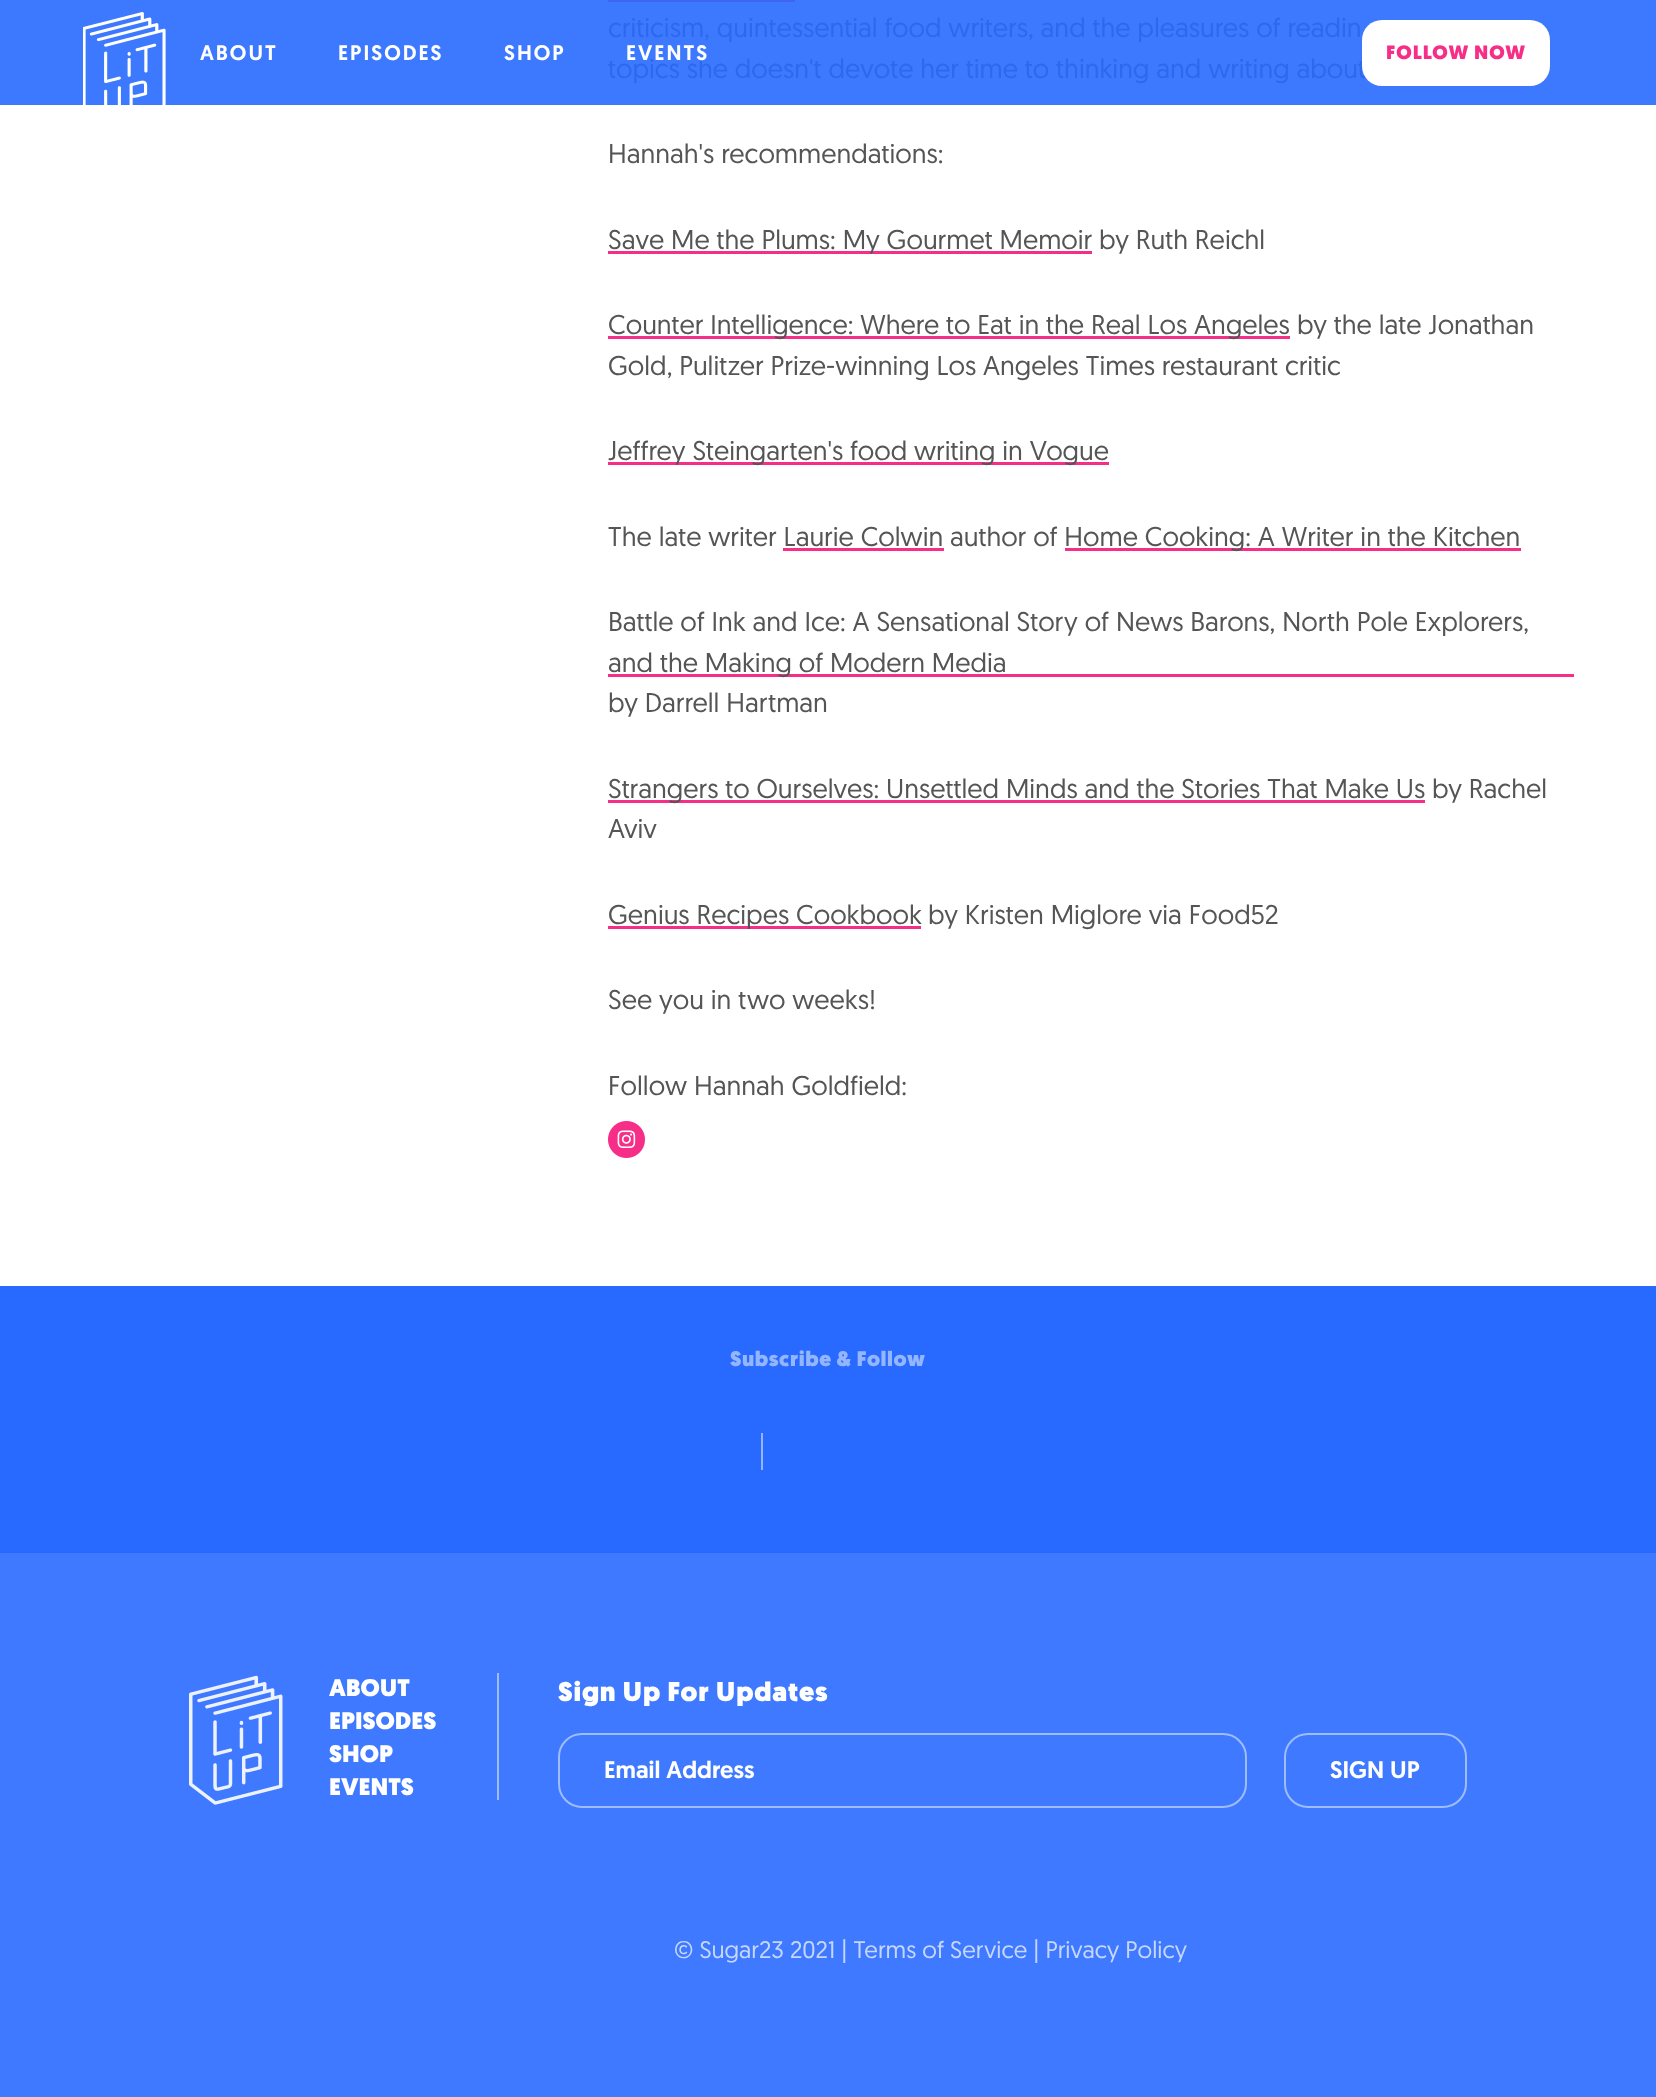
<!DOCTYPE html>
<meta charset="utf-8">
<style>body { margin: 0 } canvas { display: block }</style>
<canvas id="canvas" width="1656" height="2097"></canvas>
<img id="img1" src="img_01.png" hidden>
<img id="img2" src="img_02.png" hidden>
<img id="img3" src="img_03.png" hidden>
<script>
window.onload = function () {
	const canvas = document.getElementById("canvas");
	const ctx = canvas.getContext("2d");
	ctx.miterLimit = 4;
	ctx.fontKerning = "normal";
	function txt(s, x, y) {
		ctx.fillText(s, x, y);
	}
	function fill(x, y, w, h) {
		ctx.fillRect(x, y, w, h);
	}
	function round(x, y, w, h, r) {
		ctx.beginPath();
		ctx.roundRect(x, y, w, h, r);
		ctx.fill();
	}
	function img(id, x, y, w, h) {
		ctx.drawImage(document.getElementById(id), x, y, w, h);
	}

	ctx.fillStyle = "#FFFFFF";
	fill(0, 0, 1656, 2097);
	ctx.fillStyle = "#3D79FF";
	fill(0, 0, 1656, 105);
	ctx.fillStyle = "#3D64F3";
	fill(608, 0, 187, 2);
	ctx.fillStyle = "#F72E87";
	fill(608, 251, 484, 3);
	fill(608, 336, 682, 3);
	fill(608, 462, 501, 3);
	fill(783, 548, 161, 3);
	fill(1065, 548, 456, 3);
	fill(608, 674, 966, 3);
	fill(608, 800, 817, 3);
	fill(608, 926, 313, 3);
	img("img1", 608, 1121, 37, 37);
	img("img2", 83, 12, 83, 93);
	ctx.fillStyle = "#286AFF";
	fill(0, 1286, 1656, 267);
	ctx.fillStyle = "#94B5FF";
	fill(761, 1433, 2, 37);
	ctx.fillStyle = "#3E79FF";
	fill(0, 1553, 1656, 544);
	img("img3", 189, 1675, 94, 130);
	ctx.fillStyle = "#9FBCFF";
	fill(497, 1673, 2, 127);
	ctx.beginPath();
	ctx.roundRect(559, 1734, 687, 73, 23);
	ctx.strokeStyle = "#9FBCFF";
	ctx.lineWidth = 2;
	ctx.stroke();
	ctx.beginPath();
	ctx.roundRect(1285, 1734, 181, 73, 23);
	ctx.stroke();
	ctx.font = "27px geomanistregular";
	ctx.fillStyle = "#2D68EE";
	txt("criticism, quintessential food writers, and the pleasures of readin", 608, 37);
	txt("topics she doesn't devote her time to thinking and writing about", 608, 78);
	ctx.fillStyle = "#555555";
	txt("Hannah's recommendations:", 608, 163);
	txt("Save Me the Plums: My Gourmet Memoir", 608, 249);
	txt("by Ruth Reichl", 1099, 249);
	txt("Counter Intelligence: Where to Eat in the Real Los Angeles", 608, 334);
	txt("by the late Jonathan", 1297, 334);
	txt("Gold, Pulitzer Prize-winning Los Angeles Times restaurant critic", 608, 375);
	txt("Jeffrey Steingarten's food writing in Vogue", 608, 460);
	txt("The late writer Laurie Colwin", 608, 546);
	txt("author of Home Cooking: A Writer in the Kitchen", 950, 546);
	txt("Battle of Ink and Ice: A Sensational Story of News Barons, North Pole Explorers,", 608, 631);
	txt("and the Making of Modern Media", 608, 672);
	txt("by Darrell Hartman", 608, 712);
	txt("Strangers to Ourselves: Unsettled Minds and the Stories That Make Us", 608, 798);
	txt("by Rachel", 1432, 798);
	txt("Aviv", 608, 838);
	txt("Genius Recipes Cookbook", 608, 924);
	txt("by Kristen Miglore via Food52", 928, 924);
	txt("See you in two weeks!", 608, 1009);
	txt("Follow Hannah Goldfield:", 608, 1095);
	ctx.letterSpacing = "2px";
	ctx.font = "500 21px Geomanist";
	ctx.fillStyle = "#FFFFFF";
	txt("ABOUT", 200, 60);
	txt("EPISODES", 338, 60);
	txt("SHOP", 504, 60);
	txt("EVENTS", 626, 60);
	round(1362, 20, 188, 66, 20);
	ctx.letterSpacing = "1px";
	ctx.font = "900 19.25px Geomanist";
	ctx.fillStyle = "#F72E87";
	txt("FOLLOW NOW", 1386, 59);
	ctx.letterSpacing = "0.6px";
	ctx.font = "900 21px Geomanist";
	ctx.fillStyle = "#94B5FF";
	txt("Subscribe & Follow", 730, 1366);
	ctx.letterSpacing = "0px";
	ctx.font = "900 24px Geomanist";
	ctx.fillStyle = "#FFFFFF";
	txt("ABOUT", 329, 1696);
	txt("EPISODES", 329, 1729);
	txt("SHOP", 329, 1762);
	txt("EVENTS", 329, 1795);
	ctx.letterSpacing = "0.8px";
	ctx.font = "900 27px Geomanist";
	txt("Sign Up For Updates", 558, 1701);
	ctx.letterSpacing = "0px";
	ctx.font = "500 24px Geomanist";
	txt("Email Address", 604, 1778);
	txt("SIGN UP", 1330, 1778);
	ctx.font = "24px geomanistregular";
	ctx.fillStyle = "#C5D7FF";
	txt("© Sugar23 2021 | Terms of Service | Privacy Policy", 674, 1958);
};
</script>
